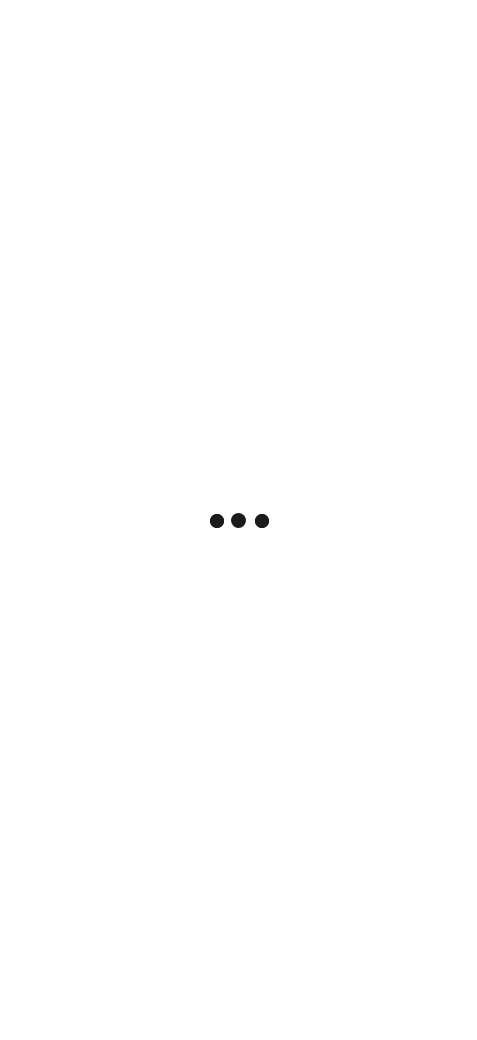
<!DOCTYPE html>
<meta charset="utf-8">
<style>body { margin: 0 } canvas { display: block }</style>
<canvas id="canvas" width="477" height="1040"></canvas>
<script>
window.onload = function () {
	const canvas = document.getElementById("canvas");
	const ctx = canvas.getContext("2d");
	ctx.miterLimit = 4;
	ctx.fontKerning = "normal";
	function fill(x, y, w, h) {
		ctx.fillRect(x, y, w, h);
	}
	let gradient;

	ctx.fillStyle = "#FFFFFF";
	fill(0, 0, 477, 1040);
	gradient = ctx.createRadialGradient(262, 521, 0, 262, 521, 7.5);
	gradient.addColorStop(0.9, "#191B1D");
	gradient.addColorStop(1, "#FFFFFF");
	ctx.fillStyle = gradient;
	fill(255, 514, 14, 14);
	gradient = ctx.createRadialGradient(217, 521, 0, 217, 521, 7.5);
	gradient.addColorStop(0.9, "#191B1D");
	gradient.addColorStop(1, "#FFFFFF");
	ctx.fillStyle = gradient;
	fill(210, 514, 14, 14);
	ctx.fillStyle = "#191B1D";
	ctx.beginPath();
	ctx.arc(238.5, 520.5, 7.5, 0, Math.PI * 2);
	ctx.fill();
};
</script>
